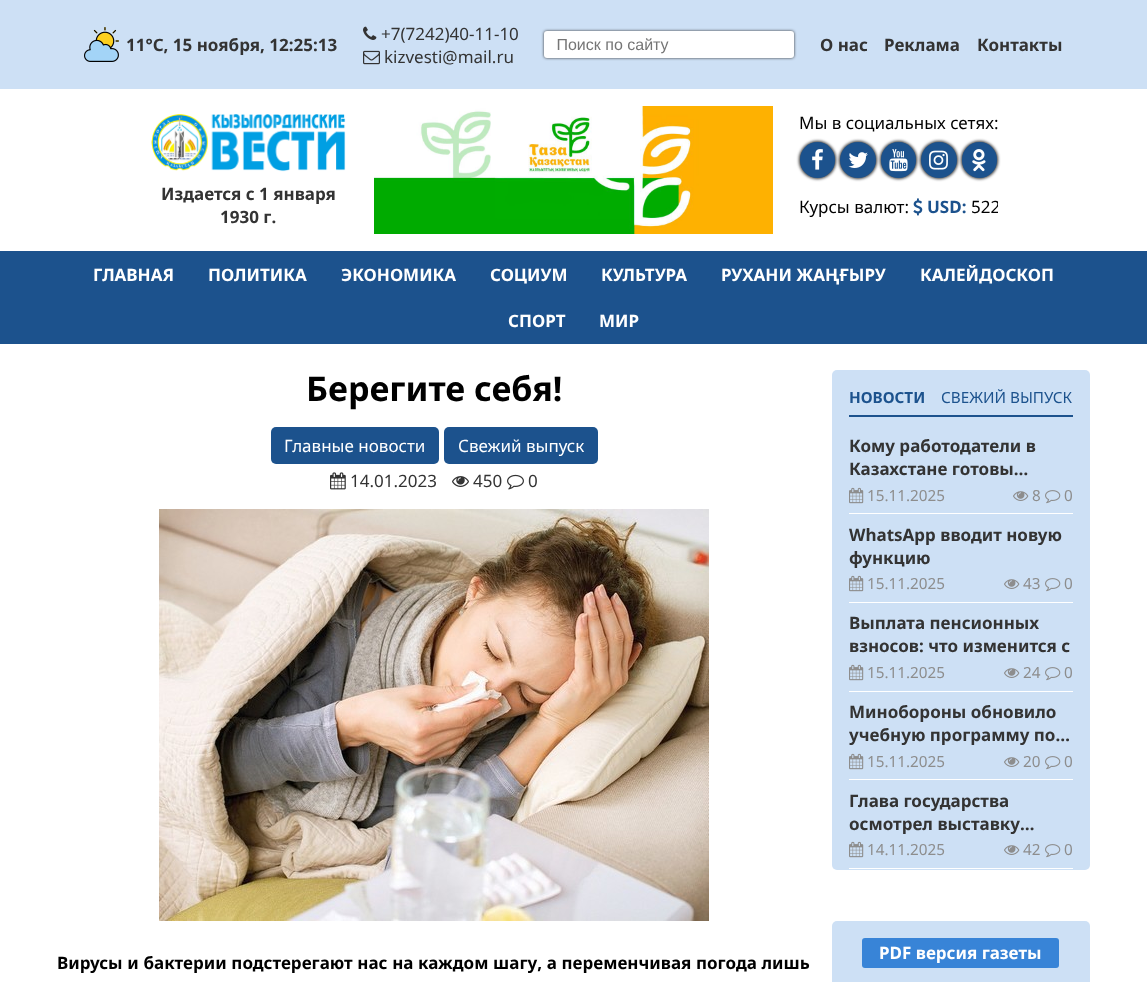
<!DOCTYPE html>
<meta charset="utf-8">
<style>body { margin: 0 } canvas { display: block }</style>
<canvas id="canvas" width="1147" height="982"></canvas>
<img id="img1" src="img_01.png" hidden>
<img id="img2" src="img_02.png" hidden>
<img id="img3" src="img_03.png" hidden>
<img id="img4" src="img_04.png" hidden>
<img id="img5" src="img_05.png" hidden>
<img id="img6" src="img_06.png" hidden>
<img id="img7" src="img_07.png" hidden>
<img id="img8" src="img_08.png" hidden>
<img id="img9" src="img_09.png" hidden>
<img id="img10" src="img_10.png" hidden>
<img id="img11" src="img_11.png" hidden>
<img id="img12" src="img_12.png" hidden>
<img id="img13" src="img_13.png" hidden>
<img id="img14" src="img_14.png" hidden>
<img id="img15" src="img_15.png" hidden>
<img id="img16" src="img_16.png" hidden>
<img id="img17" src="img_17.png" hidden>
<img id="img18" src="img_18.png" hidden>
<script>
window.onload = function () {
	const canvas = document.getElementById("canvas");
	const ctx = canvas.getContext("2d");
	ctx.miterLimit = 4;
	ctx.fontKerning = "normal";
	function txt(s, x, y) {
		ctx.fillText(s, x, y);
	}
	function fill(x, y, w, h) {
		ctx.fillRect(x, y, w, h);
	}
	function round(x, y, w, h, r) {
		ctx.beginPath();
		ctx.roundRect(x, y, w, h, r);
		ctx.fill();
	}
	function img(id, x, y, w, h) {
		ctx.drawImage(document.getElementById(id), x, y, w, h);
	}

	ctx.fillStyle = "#FFFFFF";
	fill(0, 0, 1147, 982);
	ctx.fillStyle = "#CDE0F5";
	fill(0, 0, 1147, 89);
	img("img1", 84, 27, 35, 35);
	img("img2", 363, 26, 14, 14);
	img("img3", 363, 50, 17, 15);
	ctx.fillStyle = "#333333";
	ctx.filter = "blur(1.5px)";
	ctx.beginPath();
	ctx.roundRect(544, 31, 250, 27, 3);
	ctx.fill();
	ctx.filter = "none";
	ctx.fillStyle = "#FFFFFF";
	round(544, 31, 250, 27, 3);
	img("img4", 151, 114, 195, 58);
	img("img5", 374, 106, 399, 128);
	ctx.fillStyle = "#333333";
	ctx.filter = "blur(1.5px)";
	ctx.beginPath();
	ctx.roundRect(799, 141, 37, 38, 18.5);
	ctx.fill();
	ctx.filter = "none";
	ctx.fillStyle = "#1C528D";
	round(800, 142, 35, 36, 17.5);
	img("img6", 812, 149, 11, 21);
	ctx.fillStyle = "#333333";
	ctx.filter = "blur(1.5px)";
	ctx.beginPath();
	ctx.roundRect(839, 141, 38, 38, 19);
	ctx.fill();
	ctx.filter = "none";
	ctx.fillStyle = "#1C528D";
	ctx.beginPath();
	ctx.arc(858, 160, 18, 0, Math.PI * 2);
	ctx.fill();
	img("img7", 848, 152, 20, 16);
	ctx.fillStyle = "#333333";
	ctx.filter = "blur(1.5px)";
	ctx.beginPath();
	ctx.roundRect(880, 141, 37, 38, 18.5);
	ctx.fill();
	ctx.filter = "none";
	ctx.fillStyle = "#1C528D";
	round(881, 142, 35, 36, 17.5);
	img("img8", 889, 149, 19, 23);
	ctx.fillStyle = "#333333";
	ctx.filter = "blur(1.5px)";
	ctx.beginPath();
	ctx.roundRect(920, 141, 38, 38, 19);
	ctx.fill();
	ctx.filter = "none";
	ctx.fillStyle = "#1C528D";
	ctx.beginPath();
	ctx.arc(939, 160, 18, 0, Math.PI * 2);
	ctx.fill();
	img("img9", 929, 150, 19, 20);
	ctx.fillStyle = "#333333";
	ctx.filter = "blur(1.5px)";
	ctx.beginPath();
	ctx.roundRect(961, 141, 37, 38, 18.5);
	ctx.fill();
	ctx.filter = "none";
	ctx.fillStyle = "#1C528D";
	round(962, 142, 35, 36, 17.5);
	img("img10", 972, 149, 14, 23);
	img("img11", 913, 198, 10, 18);
	fill(0, 251, 1147, 93);
	round(271, 427, 168, 37, 5);
	round(444, 427, 154, 37, 5);
	img("img12", 330, 472, 16, 18);
	img("img13", 452, 476, 17, 11);
	img("img14", 507, 474, 17, 16);
	img("img15", 159, 509, 550, 412);
	ctx.fillStyle = "#CDE0F5";
	round(832, 370, 258, 500, 5);
	ctx.fillStyle = "#1C528D";
	fill(849, 415, 224, 2);
	ctx.fillStyle = "#FFFFFF";
	fill(849, 513, 224, 1);
	img("img16", 849, 487, 15, 17);
	img("img17", 1013, 491, 16, 10);
	img("img18", 1045, 490, 16, 14);
	fill(849, 602, 224, 1);
	img("img16", 849, 575, 15, 17);
	img("img17", 1004, 579, 16, 10);
	img("img18", 1045, 578, 16, 14);
	fill(849, 691, 224, 1);
	img("img16", 849, 664, 15, 17);
	img("img17", 1004, 668, 16, 10);
	img("img18", 1045, 667, 16, 14);
	fill(849, 779, 224, 1);
	img("img16", 849, 753, 15, 17);
	img("img17", 1004, 757, 16, 10);
	img("img18", 1045, 756, 16, 14);
	fill(849, 868, 224, 1);
	img("img16", 849, 841, 15, 17);
	img("img17", 1004, 845, 16, 10);
	img("img18", 1045, 844, 16, 14);
	ctx.fillStyle = "#CDE0F5";
	round(832, 921, 258, 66, 5);
	ctx.fillStyle = "#3884D7";
	round(862, 938, 197, 30, 3);
	ctx.font = "bold 17px Noto Sans";
	ctx.fillStyle = "#333333";
	txt("11°C, 15 ноября, 12:25:13", 126, 51);
	ctx.font = "17px Noto Sans";
	txt("+7(7242)40-11-10", 381, 40);
	txt("kizvesti@mail.ru", 384, 63);
	ctx.font = "16px Liberation Sans";
	ctx.fillStyle = "#757575";
	txt(" Поиск по сайту", 552, 50);
	ctx.font = "bold 17px Noto Sans";
	ctx.fillStyle = "#333333";
	txt("О нас", 820, 51);
	txt("Реклама", 884, 51);
	txt("Контакты", 977, 51);
	txt("Издается с 1 января", 161, 200);
	txt("1930 г.", 220, 223);
	ctx.font = "17px Noto Sans";
	ctx.fillStyle = "#000000";
	txt("Мы в социальных сетях:", 799, 129);
	txt("Курсы валют:", 799, 213);
	ctx.font = "bold 17px Noto Sans";
	ctx.fillStyle = "#1C528D";
	txt("USD:", 927, 213);
	ctx.save();
	ctx.beginPath();
	ctx.rect(799, 178, 199, 42);
	ctx.clip();
	ctx.font = "17px Noto Sans";
	ctx.fillStyle = "#000000";
	txt("522", 971, 213);
	ctx.restore();
	ctx.fillStyle = "#FFFFFF";
	txt("ГЛАВНАЯ", 93, 281);
	txt("ПОЛИТИКА", 208, 281);
	txt("ЭКОНОМИКА", 341, 281);
	txt("СОЦИУМ", 490, 281);
	txt("КУЛЬТУРА", 601, 281);
	txt("РУХАНИ ЖАҢҒЫРУ", 721, 281);
	txt("КАЛЕЙДОСКОП", 920, 281);
	txt("СПОРТ", 508, 327);
	txt("МИР", 599, 327);
	ctx.font = "bold 34px Noto Sans";
	ctx.fillStyle = "#000000";
	txt("Берегите себя!", 306, 401);
	ctx.font = "17px Noto Sans";
	ctx.fillStyle = "#FFFFFF";
	txt("Главные новости", 284, 452);
	txt("Свежий выпуск", 458, 452);
	ctx.fillStyle = "#333333";
	txt("14.01.2023", 350, 487);
	txt("450", 473, 487);
	txt("0", 528, 487);
	ctx.wordSpacing = "0.25px";
	ctx.font = "bold 17px Noto Sans";
	ctx.fillStyle = "#000000";
	txt("Вирусы и бактерии подстерегают нас на каждом шагу, а переменчивая погода лишь", 57, 969);
	ctx.wordSpacing = "0px";
	ctx.font = "bold 15.25px Noto Sans";
	ctx.fillStyle = "#1C528D";
	txt("НОВОСТИ", 849, 403);
	ctx.font = "15.25px Noto Sans";
	txt("СВЕЖИЙ ВЫПУСК", 941, 403);
	ctx.font = "bold 17px Noto Sans";
	ctx.fillStyle = "#333333";
	txt("Кому работодатели в", 849, 452);
	txt("Казахстане готовы…", 849, 475);
	ctx.font = "15.25px Noto Sans";
	ctx.fillStyle = "#8D8D8D";
	txt("15.11.2025", 867, 501);
	txt("8", 1032, 501);
	txt("0", 1064, 501);
	ctx.font = "bold 17px Noto Sans";
	ctx.fillStyle = "#333333";
	txt("WhatsApp вводит новую", 849, 541);
	txt("функцию", 849, 564);
	ctx.font = "15.25px Noto Sans";
	ctx.fillStyle = "#8D8D8D";
	txt("15.11.2025", 867, 589);
	txt("43", 1023, 589);
	txt("0", 1064, 589);
	ctx.font = "bold 17px Noto Sans";
	ctx.fillStyle = "#333333";
	txt("Выплата пенсионных", 849, 629);
	txt("взносов: что изменится с", 849, 652);
	ctx.font = "15.25px Noto Sans";
	ctx.fillStyle = "#8D8D8D";
	txt("15.11.2025", 867, 678);
	txt("24", 1023, 678);
	txt("0", 1064, 678);
	ctx.font = "bold 17px Noto Sans";
	ctx.fillStyle = "#333333";
	txt("Минобороны обновило", 849, 718);
	txt("учебную программу по…", 849, 741);
	ctx.font = "15.25px Noto Sans";
	ctx.fillStyle = "#8D8D8D";
	txt("15.11.2025", 867, 767);
	txt("20", 1023, 767);
	txt("0", 1064, 767);
	ctx.font = "bold 17px Noto Sans";
	ctx.fillStyle = "#333333";
	txt("Глава государства", 849, 807);
	txt("осмотрел выставку…", 849, 830);
	ctx.font = "15.25px Noto Sans";
	ctx.fillStyle = "#8D8D8D";
	txt("14.11.2025", 867, 855);
	txt("42", 1023, 855);
	txt("0", 1064, 855);
	ctx.font = "bold 17px Noto Sans";
	ctx.fillStyle = "#FFFFFF";
	txt("PDF версия газеты", 879, 959);
};
</script>
